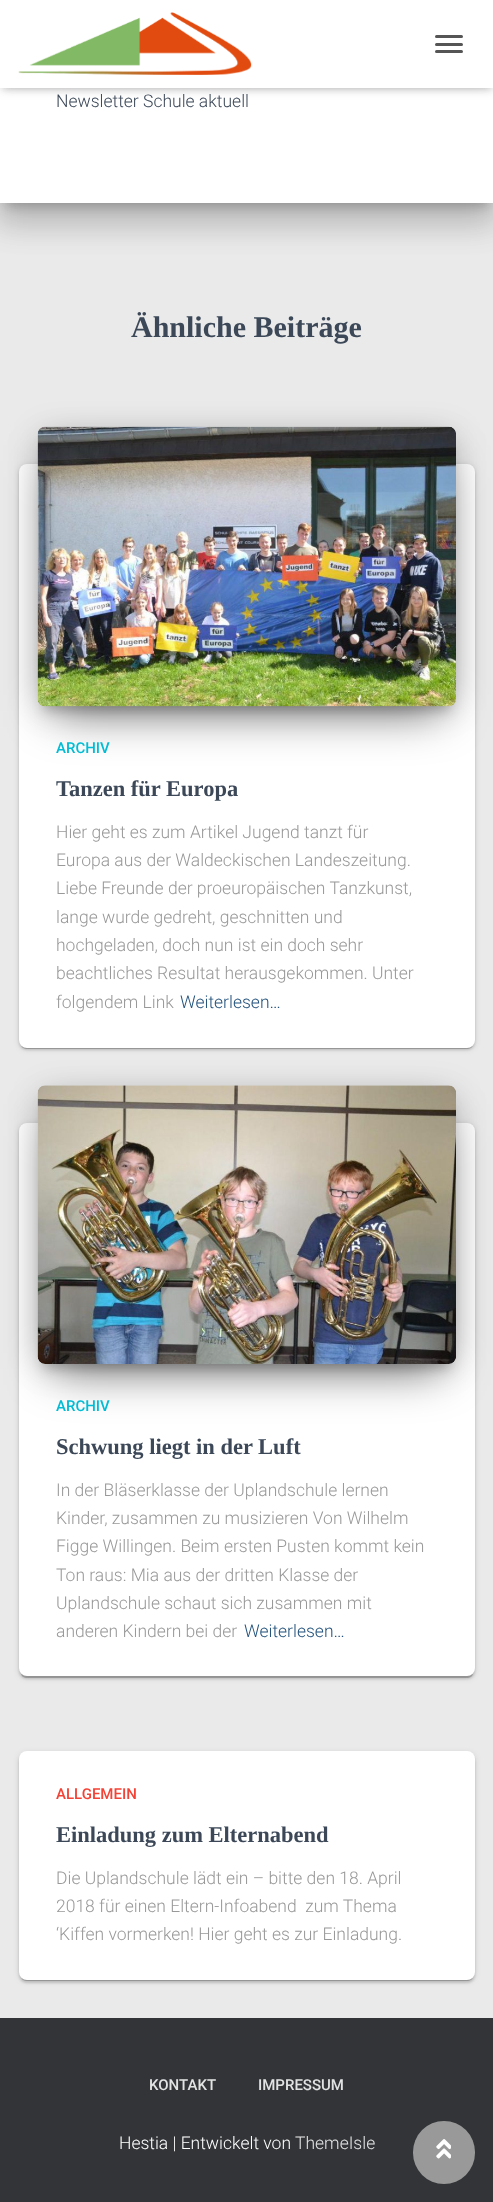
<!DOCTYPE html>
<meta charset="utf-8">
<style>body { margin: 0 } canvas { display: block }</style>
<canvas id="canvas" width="493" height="2202"></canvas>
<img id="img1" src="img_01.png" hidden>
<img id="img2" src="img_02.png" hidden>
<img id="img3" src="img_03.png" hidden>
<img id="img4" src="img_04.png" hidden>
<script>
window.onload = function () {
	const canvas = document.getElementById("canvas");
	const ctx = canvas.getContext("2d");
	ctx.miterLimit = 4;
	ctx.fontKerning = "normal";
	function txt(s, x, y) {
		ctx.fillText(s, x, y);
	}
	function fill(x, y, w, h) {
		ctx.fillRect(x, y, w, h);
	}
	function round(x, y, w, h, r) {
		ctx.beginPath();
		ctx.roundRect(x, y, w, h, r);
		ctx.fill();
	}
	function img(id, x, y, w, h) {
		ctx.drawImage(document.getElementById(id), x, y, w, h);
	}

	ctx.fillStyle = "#EAEAEA";
	fill(0, 0, 493, 2202);
	ctx.fillStyle = "rgba(0, 0, 0, 0.2)";
	ctx.filter = "blur(6px)";
	ctx.beginPath();
	ctx.rect(6, -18, 482, 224);
	ctx.fill();
	ctx.filter = "none";
	ctx.fillStyle = "rgba(0, 0, 0, 0.12)";
	ctx.filter = "blur(19px)";
	ctx.beginPath();
	ctx.rect(-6, -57, 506, 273);
	ctx.fill();
	ctx.filter = "none";
	ctx.fillStyle = "rgba(0, 0, 0, 0.14)";
	ctx.filter = "blur(15px)";
	ctx.beginPath();
	ctx.rect(-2, -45, 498, 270);
	ctx.fill();
	ctx.filter = "none";
	ctx.fillStyle = "#FFFFFF";
	fill(0, 88, 493, 115);
	ctx.fillStyle = "rgba(0, 0, 0, 0.1)";
	ctx.filter = "blur(3px)";
	ctx.beginPath();
	ctx.rect(3, 8, 488, 82);
	ctx.fill();
	ctx.filter = "none";
	ctx.fillStyle = "rgba(0, 0, 0, 0.12)";
	ctx.filter = "blur(6px)";
	ctx.beginPath();
	ctx.rect(0, 1, 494, 88);
	ctx.fill();
	ctx.filter = "none";
	ctx.fillStyle = "rgba(0, 0, 0, 0.42)";
	ctx.filter = "blur(6px)";
	ctx.beginPath();
	ctx.rect(8, 9, 478, 72);
	ctx.fill();
	ctx.filter = "none";
	ctx.fillStyle = "#FFFFFF";
	fill(0, 0, 493, 88);
	img("img1", 18, 12, 234, 63);
	ctx.fillStyle = "#555555";
	round(435, 35, 28, 3, 1.5);
	round(435, 43, 28, 3, 1.5);
	round(435, 50, 28, 3, 1.5);
	ctx.fillStyle = "rgba(0, 0, 0, 0.12)";
	ctx.filter = "blur(3px)";
	ctx.beginPath();
	ctx.roundRect(19, 465, 456, 584, 8);
	ctx.fill();
	ctx.filter = "none";
	ctx.fillStyle = "rgba(0, 0, 0, 0.2)";
	ctx.filter = "blur(0.5px)";
	ctx.beginPath();
	ctx.roundRect(21, 470, 452, 579, 5);
	ctx.fill();
	ctx.filter = "none";
	ctx.fillStyle = "rgba(0, 0, 0, 0.14)";
	ctx.filter = "blur(1px)";
	ctx.beginPath();
	ctx.roundRect(19, 466, 456, 584, 8);
	ctx.fill();
	ctx.filter = "none";
	ctx.fillStyle = "#FFFFFF";
	round(19, 464, 456, 584, 8);
	ctx.fillStyle = "rgba(0, 0, 0, 0.2)";
	ctx.filter = "blur(6px)";
	ctx.beginPath();
	ctx.roundRect(44, 443, 406, 267, 1);
	ctx.fill();
	ctx.filter = "none";
	ctx.fillStyle = "rgba(0, 0, 0, 0.12)";
	ctx.filter = "blur(15.5px)";
	ctx.beginPath();
	ctx.roundRect(38, 431, 418, 280, 8);
	ctx.fill();
	ctx.filter = "none";
	ctx.fillStyle = "rgba(0, 0, 0, 0.56)";
	ctx.filter = "blur(24px)";
	ctx.beginPath();
	ctx.rect(53, 461, 388, 250);
	ctx.fill();
	ctx.filter = "none";
	img("img2", 37, 426, 419, 281);
	ctx.fillStyle = "rgba(0, 0, 0, 0.12)";
	ctx.filter = "blur(3px)";
	ctx.beginPath();
	ctx.roundRect(19, 1124, 456, 554, 8);
	ctx.fill();
	ctx.filter = "none";
	ctx.fillStyle = "rgba(0, 0, 0, 0.2)";
	ctx.filter = "blur(0.5px)";
	ctx.beginPath();
	ctx.roundRect(21, 1129, 452, 549, 5);
	ctx.fill();
	ctx.filter = "none";
	ctx.fillStyle = "rgba(0, 0, 0, 0.14)";
	ctx.filter = "blur(1px)";
	ctx.beginPath();
	ctx.roundRect(19, 1125, 456, 554, 8);
	ctx.fill();
	ctx.filter = "none";
	ctx.fillStyle = "#FFFFFF";
	round(19, 1123, 456, 553, 8);
	ctx.fillStyle = "rgba(0, 0, 0, 0.2)";
	ctx.filter = "blur(6px)";
	ctx.beginPath();
	ctx.roundRect(44, 1101, 406, 267, 1);
	ctx.fill();
	ctx.filter = "none";
	ctx.fillStyle = "rgba(0, 0, 0, 0.12)";
	ctx.filter = "blur(15.5px)";
	ctx.beginPath();
	ctx.roundRect(38, 1090, 418, 279, 8);
	ctx.fill();
	ctx.filter = "none";
	ctx.fillStyle = "rgba(0, 0, 0, 0.56)";
	ctx.filter = "blur(24px)";
	ctx.beginPath();
	ctx.rect(53, 1120, 388, 249);
	ctx.fill();
	ctx.filter = "none";
	img("img3", 37, 1085, 419, 279);
	ctx.fillStyle = "rgba(0, 0, 0, 0.12)";
	ctx.filter = "blur(3px)";
	ctx.beginPath();
	ctx.roundRect(19, 1753, 456, 228, 8);
	ctx.fill();
	ctx.filter = "none";
	ctx.fillStyle = "rgba(0, 0, 0, 0.2)";
	ctx.filter = "blur(0.5px)";
	ctx.beginPath();
	ctx.roundRect(21, 1758, 452, 223, 5);
	ctx.fill();
	ctx.filter = "none";
	ctx.fillStyle = "rgba(0, 0, 0, 0.14)";
	ctx.filter = "blur(1px)";
	ctx.beginPath();
	ctx.roundRect(19, 1754, 456, 229, 8);
	ctx.fill();
	ctx.filter = "none";
	ctx.fillStyle = "#FFFFFF";
	round(19, 1751, 456, 229, 8);
	ctx.fillStyle = "#323437";
	fill(0, 2018, 493, 184);
	ctx.fillStyle = "#999999";
	round(413, 2121, 62, 63, 31);
	img("img4", 436, 2139, 15, 20);
	ctx.font = "300 17.5px Roboto";
	ctx.fillStyle = "#3C4858";
	txt("Newsletter Schule aktuell", 56, 107);
	ctx.font = "bold 30px Liberation Serif";
	txt("Ähnliche Beiträge", 131, 337);
	ctx.font = "500 15px Roboto";
	ctx.fillStyle = "#00BCD4";
	txt("ARCHIV", 56, 753);
	ctx.font = "bold 22.5px Liberation Serif";
	ctx.fillStyle = "#3C4858";
	txt("Tanzen für Europa", 56, 796);
	ctx.font = "300 17.5px Roboto";
	ctx.fillStyle = "#999999";
	txt("Hier geht es zum Artikel Jugend tanzt für", 56, 838);
	txt("Europa aus der Waldeckischen Landeszeitung.", 56, 866);
	txt("Liebe Freunde der proeuropäischen Tanzkunst,", 56, 894);
	txt("lange wurde gedreht, geschnitten und", 56, 923);
	txt("hochgeladen, doch nun ist ein doch sehr", 56, 951);
	txt("beachtliches Resultat herausgekommen. Unter", 56, 979);
	txt("folgendem Link", 56, 1008);
	ctx.fillStyle = "#23527C";
	txt("Weiterlesen…", 180, 1008);
	ctx.font = "500 15px Roboto";
	ctx.fillStyle = "#00BCD4";
	txt("ARCHIV", 56, 1411);
	ctx.font = "bold 22.5px Liberation Serif";
	ctx.fillStyle = "#3C4858";
	txt("Schwung liegt in der Luft", 56, 1454);
	ctx.font = "300 17.5px Roboto";
	ctx.fillStyle = "#999999";
	txt("In der Bläserklasse der Uplandschule lernen", 56, 1496);
	txt("Kinder, zusammen zu musizieren Von Wilhelm", 56, 1524);
	txt("Figge Willingen. Beim ersten Pusten kommt kein", 56, 1552);
	txt("Ton raus: Mia aus der dritten Klasse der", 56, 1581);
	txt("Uplandschule schaut sich zusammen mit", 56, 1609);
	txt("anderen Kindern bei der", 56, 1637);
	ctx.fillStyle = "#23527C";
	txt("Weiterlesen…", 244, 1637);
	ctx.font = "500 15px Roboto";
	ctx.fillStyle = "#F44336";
	txt("ALLGEMEIN", 56, 1799);
	ctx.font = "bold 22.5px Liberation Serif";
	ctx.fillStyle = "#3C4858";
	txt("Einladung zum Elternabend", 56, 1842);
	ctx.font = "300 17.5px Roboto";
	ctx.fillStyle = "#999999";
	txt("Die Uplandschule lädt ein – bitte den 18. April", 56, 1884);
	txt("2018 für einen Eltern-Infoabend  zum Thema", 56, 1912);
	txt("‘Kiffen vormerken! Hier geht es zur Einladung.", 56, 1940);
	ctx.font = "500 15px Roboto";
	ctx.fillStyle = "#E2E3E3";
	txt("KONTAKT", 149, 2090);
	txt("IMPRESSUM", 258, 2090);
	ctx.font = "300 17.5px Roboto";
	ctx.fillStyle = "#FFFFFF";
	txt("Hestia | Entwickelt von", 119, 2149);
	ctx.fillStyle = "#E2E3E3";
	txt("ThemeIsle", 295, 2149);
};
</script>
